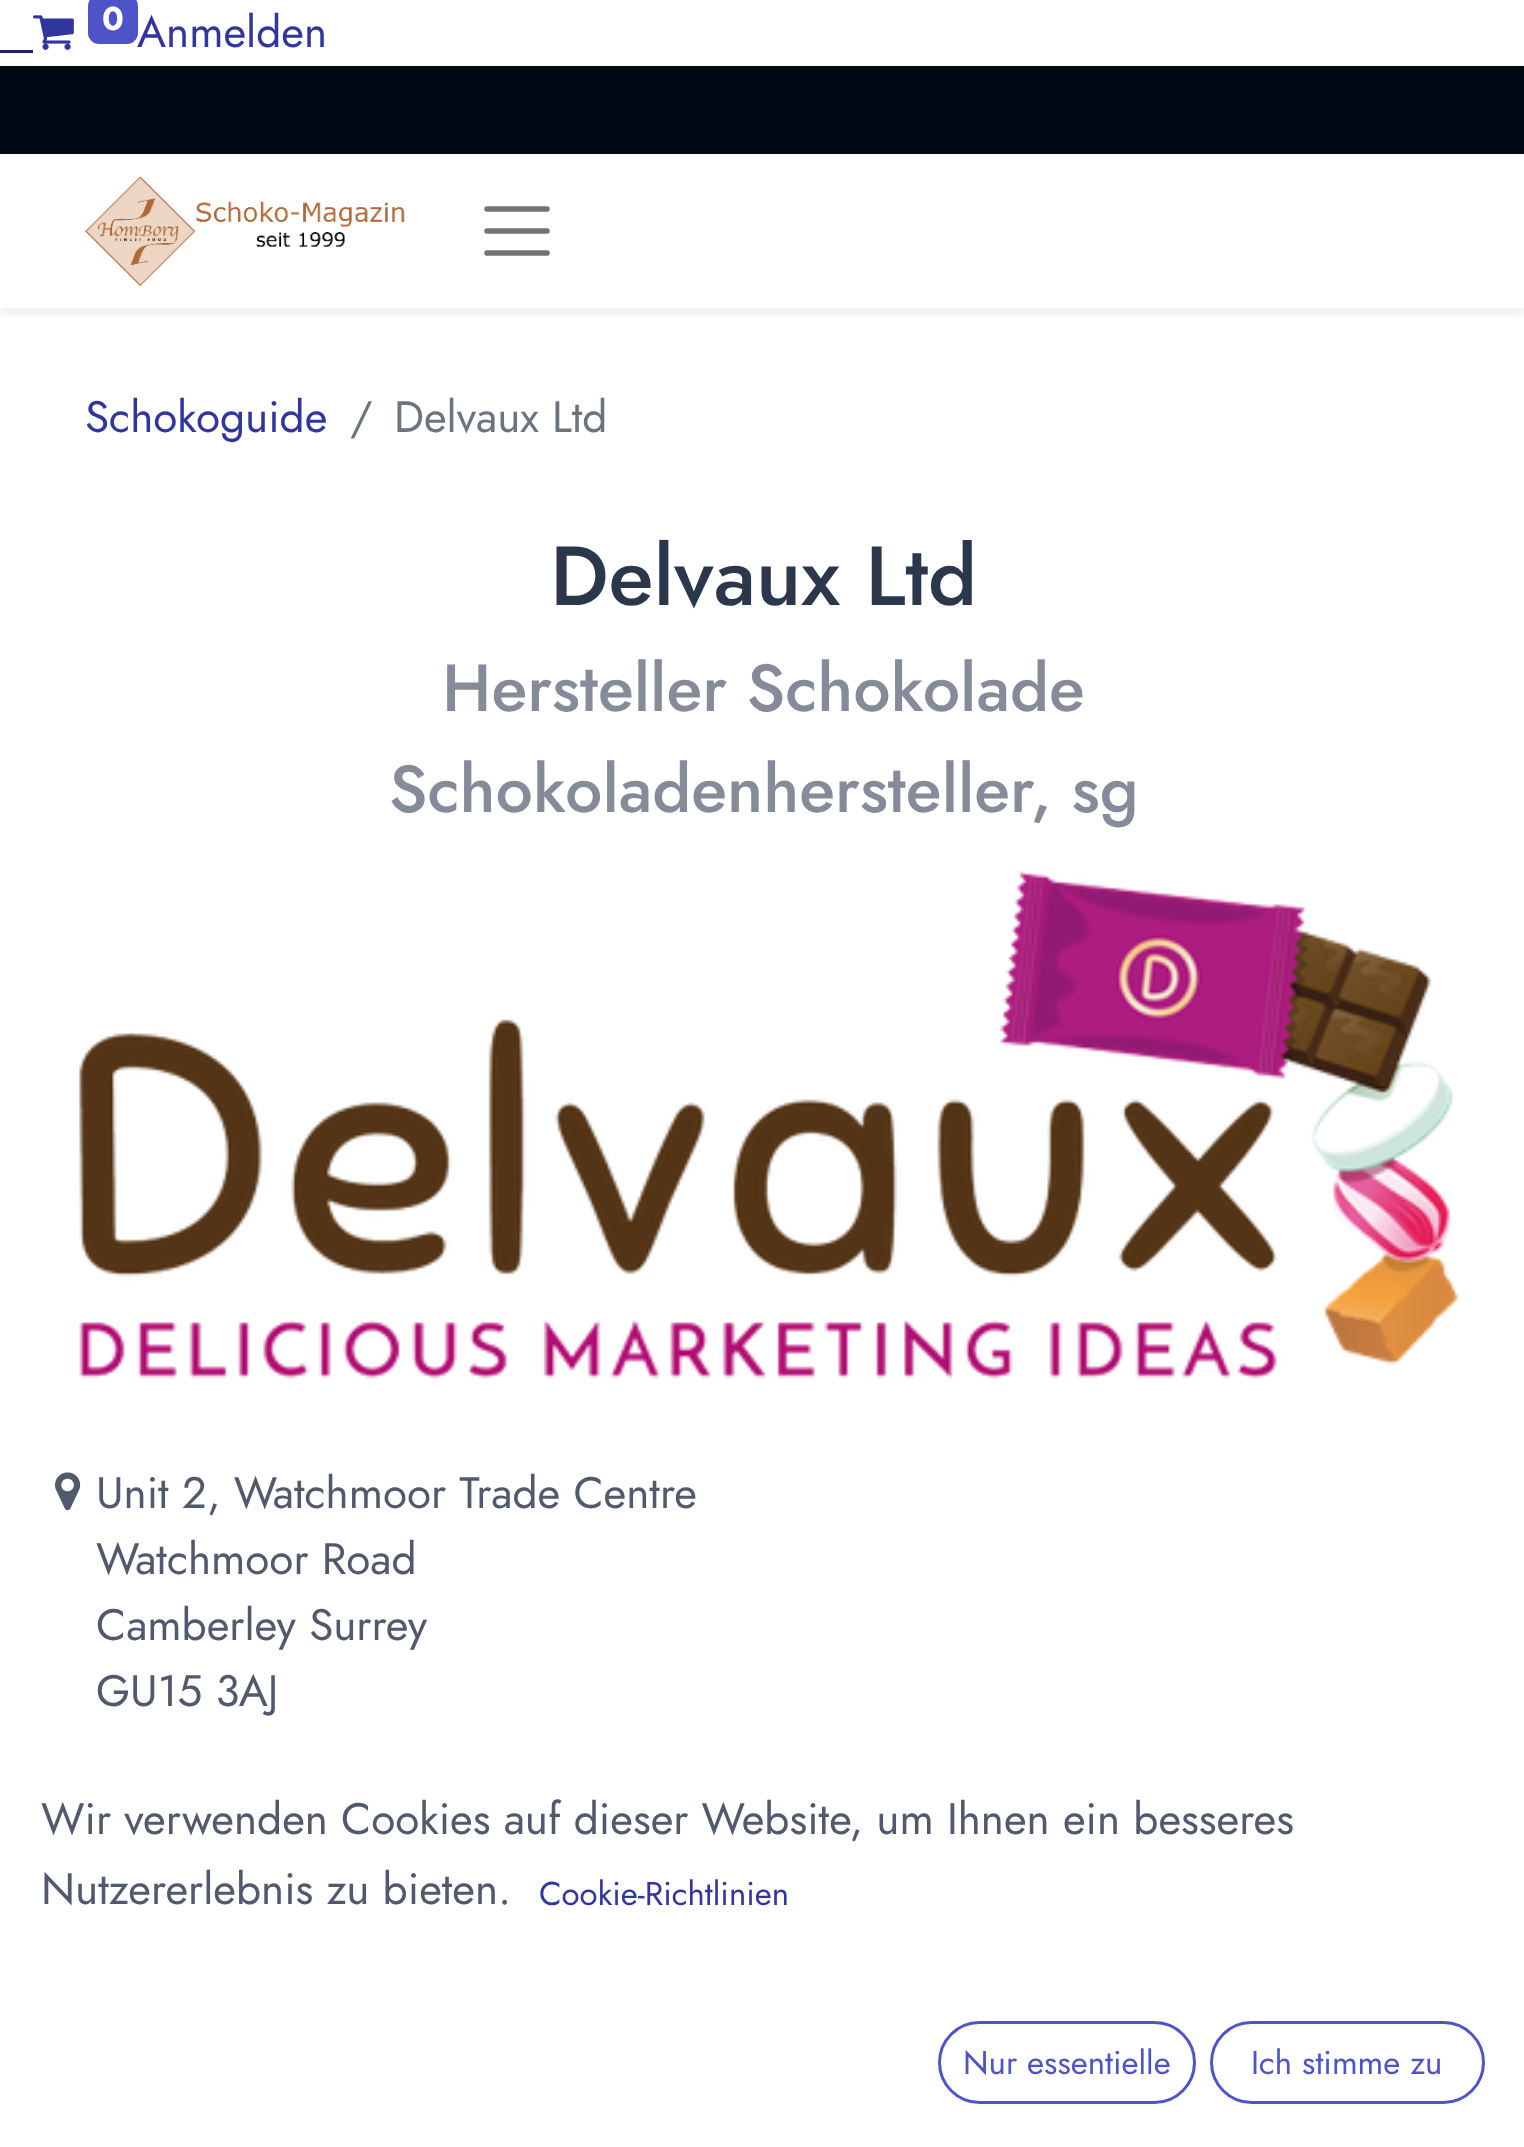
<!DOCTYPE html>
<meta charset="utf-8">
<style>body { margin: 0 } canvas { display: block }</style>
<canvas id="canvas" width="1524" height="2147"></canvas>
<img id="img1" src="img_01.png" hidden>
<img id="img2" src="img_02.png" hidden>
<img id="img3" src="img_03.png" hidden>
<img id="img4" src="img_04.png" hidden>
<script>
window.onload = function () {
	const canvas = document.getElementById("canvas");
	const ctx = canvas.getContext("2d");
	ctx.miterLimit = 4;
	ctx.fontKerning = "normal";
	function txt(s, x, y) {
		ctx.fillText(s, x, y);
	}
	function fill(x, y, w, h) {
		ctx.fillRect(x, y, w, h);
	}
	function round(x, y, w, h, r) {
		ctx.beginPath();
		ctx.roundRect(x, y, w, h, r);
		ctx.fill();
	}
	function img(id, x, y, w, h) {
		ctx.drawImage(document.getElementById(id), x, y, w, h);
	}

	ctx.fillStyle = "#FFFFFF";
	fill(0, 0, 1524, 2147);
	img("img1", 33, 15, 41, 35);
	ctx.fillStyle = "#1F2263";
	fill(0, 50, 33, 3);
	ctx.fillStyle = "#000814";
	fill(0, 66, 1524, 88);
	ctx.save();
	ctx.beginPath();
	ctx.rect(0, 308, 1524, 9);
	ctx.clip();
	ctx.fillStyle = "rgba(0, 0, 0, 0.07)";
	ctx.filter = "blur(5.5px)";
	ctx.beginPath();
	ctx.rect(0, 160, 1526, 154);
	ctx.fill();
	ctx.filter = "none";
	ctx.restore();
	img("img2", 85, 176, 320, 110);
	ctx.beginPath();
	ctx.moveTo(487, 209);
	ctx.lineTo(547, 209);
	ctx.moveTo(487, 231);
	ctx.lineTo(547, 231);
	ctx.moveTo(487, 253);
	ctx.lineTo(547, 253);
	ctx.strokeStyle = "#737373";
	ctx.lineWidth = 5.5;
	ctx.lineCap = "round";
	ctx.stroke();
	img("img3", 79, 871, 1380, 508);
	img("img4", 55, 1472, 26, 39);
	ctx.beginPath();
	ctx.roundRect(939.5, 2022.5, 255, 80, 40);
	ctx.strokeStyle = "#4E54C8";
	ctx.lineWidth = 3;
	ctx.stroke();
	ctx.beginPath();
	ctx.roundRect(1211.5, 2022.5, 272, 80, 40);
	ctx.stroke();
	ctx.font = "44px Jost";
	ctx.fillStyle = "#31369E";
	txt("Anmelden", 137, 47);
	ctx.fillStyle = "#4E54C8";
	round(88, -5, 50, 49, 11);
	ctx.font = "bold 33px Jost";
	ctx.fillStyle = "#FFFFFF";
	txt("0", 102, 30);
	ctx.font = "44px Jost";
	ctx.fillStyle = "#31369E";
	txt("Schokoguide", 85, 432);
	ctx.fillStyle = "#6C757D";
	txt("/", 350, 432);
	txt("Delvaux Ltd", 394, 432);
	ctx.font = "500 83.5px Jost";
	ctx.fillStyle = "#2D374B";
	txt("Delvaux Ltd", 550, 605);
	ctx.font = "500 66.4px Jost";
	ctx.fillStyle = "#858B98";
	txt("Hersteller Schokolade", 442, 711);
	txt("Schokoladenhersteller, sg", 389, 812);
	ctx.font = "44px Jost";
	ctx.fillStyle = "#51596C";
	txt("Unit 2, Watchmoor Trade Centre", 96, 1508);
	txt("Watchmoor Road", 96, 1574);
	txt("Camberley Surrey", 96, 1640);
	txt("GU15 3AJ", 96, 1706);
	txt("Wir verwenden Cookies auf dieser Website, um Ihnen ein besseres", 41, 1834);
	txt("Nutzererlebnis zu bieten.", 41, 1904);
	ctx.font = "33px Jost";
	ctx.fillStyle = "#31369E";
	txt("Cookie-Richtlinien", 539, 1905);
	ctx.fillStyle = "#4E54C8";
	txt("Nur essentielle", 963, 2074);
	txt("Ich stimme zu", 1251, 2074);
};
</script>
